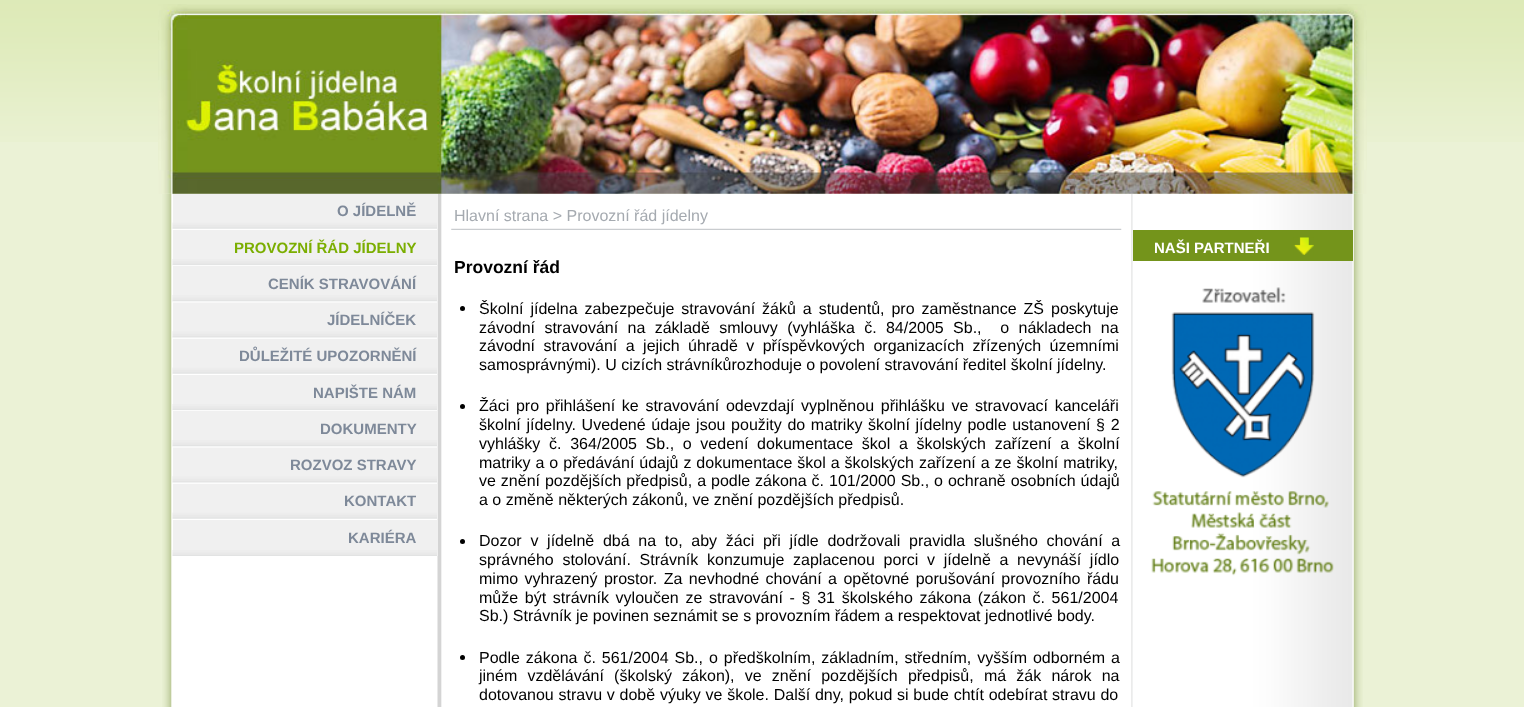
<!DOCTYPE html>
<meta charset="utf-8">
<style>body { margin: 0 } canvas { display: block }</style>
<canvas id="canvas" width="1524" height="707"></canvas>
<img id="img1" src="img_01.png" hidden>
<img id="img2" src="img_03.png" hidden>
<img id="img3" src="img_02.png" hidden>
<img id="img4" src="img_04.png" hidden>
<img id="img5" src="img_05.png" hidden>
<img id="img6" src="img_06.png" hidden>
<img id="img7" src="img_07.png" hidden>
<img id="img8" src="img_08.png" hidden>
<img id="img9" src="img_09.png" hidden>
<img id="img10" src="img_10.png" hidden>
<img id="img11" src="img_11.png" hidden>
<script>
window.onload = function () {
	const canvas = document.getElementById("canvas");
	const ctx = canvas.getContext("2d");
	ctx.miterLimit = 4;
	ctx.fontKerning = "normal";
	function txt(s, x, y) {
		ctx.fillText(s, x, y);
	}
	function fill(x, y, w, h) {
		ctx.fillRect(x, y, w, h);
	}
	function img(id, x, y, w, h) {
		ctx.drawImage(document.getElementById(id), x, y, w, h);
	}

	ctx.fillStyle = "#EBF2D6";
	fill(0, 0, 1524, 707);
	img("img1", 0, 0, 1524, 142);
	img("img2", 162, 193, 1201, 514);
	img("img3", 158, 4, 1209, 190);
	ctx.fillStyle = "#F0F0F0";
	fill(173, 194, 265, 362);
	img("img4", 172, 222, 265, 8);
	img("img5", 172, 259, 265, 7);
	img("img6", 172, 295, 265, 8);
	img("img7", 172, 331, 265, 8);
	img("img4", 172, 367, 265, 8);
	img("img5", 172, 404, 265, 7);
	img("img6", 172, 440, 265, 8);
	img("img7", 172, 476, 265, 8);
	img("img4", 172, 512, 265, 8);
	img("img8", 172, 550, 265, 6);
	img("img9", 451, 228, 671, 2);
	ctx.fillStyle = "#000000";
	ctx.beginPath();
	ctx.arc(462.5, 308.5, 2.5, 0, Math.PI * 2);
	ctx.fill();
	ctx.beginPath();
	ctx.arc(462.5, 406.5, 2.5, 0, Math.PI * 2);
	ctx.fill();
	ctx.beginPath();
	ctx.arc(462.5, 541.5, 2.5, 0, Math.PI * 2);
	ctx.fill();
	ctx.beginPath();
	ctx.arc(462.5, 657.5, 2.5, 0, Math.PI * 2);
	ctx.fill();
	ctx.fillStyle = "#74941B";
	fill(1133, 230, 220, 31);
	img("img10", 1293, 237, 21, 18);
	img("img11", 1151, 287, 183, 289);
	ctx.font = "bold 15px Liberation Sans";
	ctx.fillStyle = "#7E8999";
	txt("O JÍDELNĚ", 337, 216);
	ctx.fillStyle = "#7BAE01";
	txt("PROVOZNÍ ŘÁD JÍDELNY", 234, 253);
	ctx.fillStyle = "#7E8999";
	txt("CENÍK STRAVOVÁNÍ", 268, 289);
	txt("JÍDELNÍČEK", 327, 325);
	txt("DŮLEŽITÉ UPOZORNĚNÍ", 239, 361);
	txt("NAPIŠTE NÁM", 313, 398);
	txt("DOKUMENTY", 320, 434);
	txt("ROZVOZ STRAVY", 290, 470);
	txt("KONTAKT", 344, 506);
	txt("KARIÉRA", 348, 543);
	ctx.font = "16px Liberation Sans";
	ctx.fillStyle = "#A5AAB0";
	txt("Hlavní strana > Provozní řád jídelny", 454, 221);
	ctx.font = "bold 17.5px Liberation Sans";
	ctx.fillStyle = "#000000";
	txt("Provozní řád", 454, 273);
	ctx.wordSpacing = "2.5px";
	ctx.font = "16px Liberation Sans";
	txt("Školní jídelna zabezpečuje stravování žáků a studentů, pro zaměstnance ZŠ poskytuje", 479, 314);
	ctx.wordSpacing = "4.9px";
	txt("závodní stravování na základě smlouvy (vyhláška č. 84/2005 Sb.,  o nákladech na", 479, 333);
	ctx.wordSpacing = "4px";
	txt("závodní stravování a jejich úhradě v příspěvkových organizacích zřízených územními", 479, 351);
	ctx.wordSpacing = "0px";
	txt("samosprávnými). U cizích strávníkůrozhoduje o povolení stravování ředitel školní jídelny.", 479, 370);
	ctx.wordSpacing = "2.25px";
	txt("Žáci pro přihlášení ke stravování odevzdají vyplněnou přihlášku ve stravovací kanceláři", 479, 411);
	ctx.wordSpacing = "1.2px";
	txt("školní jídelny. Uvedené údaje jsou použity do matriky školní jídelny podle ustanovení § 2", 479, 430);
	ctx.wordSpacing = "4.25px";
	txt("vyhlášky č. 364/2005 Sb., o vedení dokumentace škol a školských zařízení a školní", 479, 449);
	ctx.wordSpacing = "0.5px";
	txt("matriky a o předávání údajů z dokumentace škol a školských zařízení a ze školní matriky,", 479, 468);
	txt("ve znění pozdějších předpisů, a podle zákona č. 101/2000 Sb., o ochraně osobních údajů", 479, 486);
	ctx.wordSpacing = "0px";
	txt("a o změně některých zákonů, ve znění pozdějších předpisů.", 479, 505);
	ctx.wordSpacing = "4.25px";
	txt("Dozor v jídelně dbá na to, aby žáci při jídle dodržovali pravidla slušného chování a", 479, 546);
	txt("správného stolování. Strávník konzumuje zaplacenou porci v jídelně a nevynáší jídlo", 479, 565);
	ctx.wordSpacing = "2px";
	txt("mimo vyhrazený prostor. Za nevhodné chování a opětovné porušování provozního řádu", 479, 584);
	ctx.wordSpacing = "2.25px";
	txt("může být strávník vyloučen ze stravování - § 31 školského zákona (zákon č. 561/2004", 479, 603);
	ctx.wordSpacing = "0px";
	txt("Sb.) Strávník je povinen seznámit se s provozním řádem a respektovat jednotlivé body.", 479, 621);
	ctx.wordSpacing = "1.5px";
	txt("Podle zákona č. 561/2004 Sb., o předškolním, základním, středním, vyšším odborném a", 479, 663);
	ctx.wordSpacing = "5.75px";
	txt("jiném vzdělávání (školský zákon), ve znění pozdějších předpisů, má žák nárok na", 479, 681);
	ctx.wordSpacing = "0.3px";
	txt("dotovanou stravu v době výuky ve škole. Další dny, pokud si bude chtít odebírat stravu do", 479, 700);
	ctx.wordSpacing = "0px";
	ctx.font = "bold 15px Liberation Sans";
	ctx.fillStyle = "#FFFFFF";
	txt("NAŠI PARTNEŘI", 1154, 253);
};
</script>
